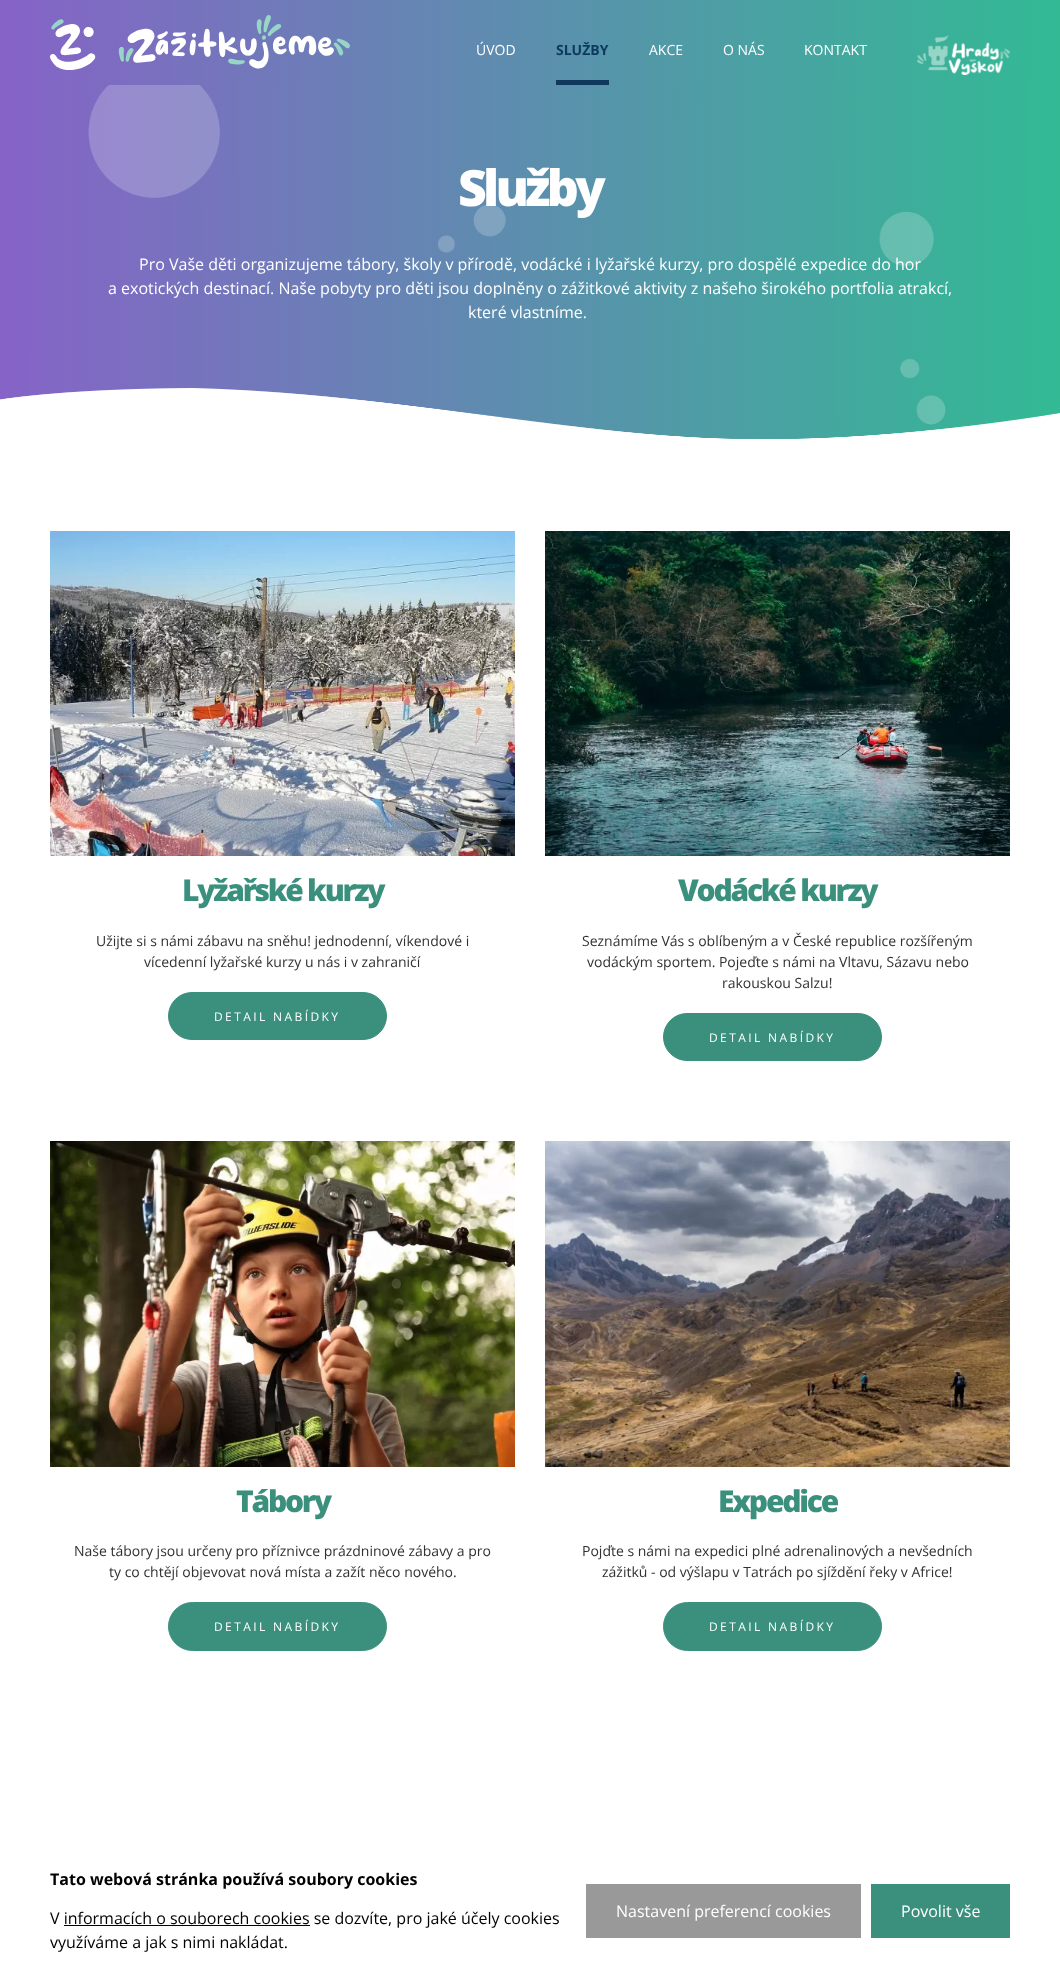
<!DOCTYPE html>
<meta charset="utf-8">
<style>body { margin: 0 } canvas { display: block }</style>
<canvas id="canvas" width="1060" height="1974"></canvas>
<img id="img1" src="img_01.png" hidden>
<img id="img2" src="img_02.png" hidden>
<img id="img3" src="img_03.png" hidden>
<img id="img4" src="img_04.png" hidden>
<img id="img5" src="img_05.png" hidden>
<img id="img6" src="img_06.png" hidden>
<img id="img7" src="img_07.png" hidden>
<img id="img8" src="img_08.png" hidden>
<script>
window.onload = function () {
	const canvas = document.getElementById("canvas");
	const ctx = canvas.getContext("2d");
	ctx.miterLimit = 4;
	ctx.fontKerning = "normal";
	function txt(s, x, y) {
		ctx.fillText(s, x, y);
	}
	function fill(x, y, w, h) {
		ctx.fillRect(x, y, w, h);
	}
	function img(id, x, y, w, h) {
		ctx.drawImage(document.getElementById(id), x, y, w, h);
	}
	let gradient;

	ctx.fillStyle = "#FFFFFF";
	fill(0, 0, 1060, 1974);
	gradient = ctx.createLinearGradient(0, 43, 1060, 42);
	gradient.addColorStop(0, "#8663C7");
	gradient.addColorStop(1, "#32BA94");
	ctx.fillStyle = gradient;
	fill(0, 0, 1060, 85);
	img("img1", 50, 15, 300, 55);
	ctx.fillStyle = "#10385C";
	fill(556, 80, 53, 5);
	img("img2", 917, 35, 93, 40);
	gradient = ctx.createLinearGradient(0, 268, 1060, 267);
	gradient.addColorStop(0, "#8663C7");
	gradient.addColorStop(1, "#32BA94");
	ctx.fillStyle = gradient;
	fill(0, 85, 1060, 354);
	img("img3", 88, 85, 858, 340);
	img("img4", 0, 388, 1060, 63);
	img("img5", 50, 531, 465, 325);
	ctx.fillStyle = "#3B907D";
	ctx.beginPath();
	ctx.roundRect(168.5, 992.5, 218, 47, 23.5);
	ctx.fill();
	ctx.strokeStyle = "#3B907D";
	ctx.stroke();
	img("img6", 545, 531, 465, 325);
	ctx.beginPath();
	ctx.roundRect(663.5, 1013.5, 218, 47, 23.5);
	ctx.fill();
	ctx.stroke();
	img("img7", 50, 1141, 465, 326);
	ctx.beginPath();
	ctx.roundRect(168.5, 1602.5, 218, 48, 24);
	ctx.fill();
	ctx.stroke();
	img("img8", 545, 1141, 465, 326);
	ctx.beginPath();
	ctx.roundRect(663.5, 1602.5, 218, 48, 24);
	ctx.fill();
	ctx.stroke();
	ctx.fillStyle = "#000000";
	fill(64, 1925, 246, 1);
	ctx.fillStyle = "#999999";
	fill(586, 1884, 275, 54);
	ctx.fillStyle = "#3B907D";
	fill(871, 1884, 139, 54);
	ctx.font = "14px Open Sans";
	ctx.fillStyle = "#FFFFFF";
	txt("ÚVOD", 476, 55);
	ctx.font = "bold 14px Open Sans";
	ctx.fillStyle = "#10385C";
	txt("SLUŽBY", 556, 55);
	ctx.font = "14px Open Sans";
	ctx.fillStyle = "#FFFFFF";
	txt("AKCE", 649, 55);
	txt("O NÁS", 723, 55);
	txt("KONTAKT", 804, 55);
	ctx.letterSpacing = "-3.75px";
	ctx.font = "800 50px Open Sans";
	txt("Služby", 458, 206);
	ctx.letterSpacing = "0px";
	ctx.font = "16px Open Sans";
	txt("Pro Vaše děti organizujeme tábory, školy v přírodě, vodácké i lyžařské kurzy, pro dospělé expedice do hor", 139, 270);
	txt("a exotických destinací. Naše pobyty pro děti jsou doplněny o zážitkové aktivity z našeho širokého portfolia atrakcí,", 108, 294);
	txt("které vlastníme.", 468, 318);
	ctx.letterSpacing = "-2.25px";
	ctx.font = "800 30px Open Sans";
	ctx.fillStyle = "#3B907D";
	txt("Lyžařské kurzy", 182, 901);
	ctx.letterSpacing = "0px";
	ctx.font = "14px Open Sans";
	ctx.fillStyle = "#313131";
	txt("Užijte si s námi zábavu na sněhu! jednodenní, víkendové i", 96, 946);
	txt("vícedenní lyžařské kurzy u nás i v zahraničí", 144, 967);
	ctx.letterSpacing = "2.4px";
	ctx.font = "12px Open Sans";
	ctx.fillStyle = "#FFFFFF";
	txt("DETAIL NABÍDKY", 214, 1021);
	ctx.letterSpacing = "-2.25px";
	ctx.font = "800 30px Open Sans";
	ctx.fillStyle = "#3B907D";
	txt("Vodácké kurzy", 678, 901);
	ctx.letterSpacing = "0px";
	ctx.font = "14px Open Sans";
	ctx.fillStyle = "#313131";
	txt("Seznámíme Vás s oblíbeným a v České republice rozšířeným", 582, 946);
	txt("vodáckým sportem. Pojeďte s námi na Vltavu, Sázavu nebo", 587, 967);
	txt("rakouskou Salzu!", 722, 988);
	ctx.letterSpacing = "2.4px";
	ctx.font = "12px Open Sans";
	ctx.fillStyle = "#FFFFFF";
	txt("DETAIL NABÍDKY", 709, 1042);
	ctx.letterSpacing = "-2.25px";
	ctx.font = "800 30px Open Sans";
	ctx.fillStyle = "#3B907D";
	txt("Tábory", 236, 1512);
	ctx.letterSpacing = "0px";
	ctx.font = "14px Open Sans";
	ctx.fillStyle = "#313131";
	txt("Naše tábory jsou určeny pro příznivce prázdninové zábavy a pro", 74, 1556);
	txt("ty co chtějí objevovat nová místa a zažít něco nového.", 109, 1577);
	ctx.letterSpacing = "2.4px";
	ctx.font = "12px Open Sans";
	ctx.fillStyle = "#FFFFFF";
	txt("DETAIL NABÍDKY", 214, 1631);
	ctx.letterSpacing = "-2.25px";
	ctx.font = "800 30px Open Sans";
	ctx.fillStyle = "#3B907D";
	txt("Expedice", 718, 1512);
	ctx.letterSpacing = "0px";
	ctx.font = "14px Open Sans";
	ctx.fillStyle = "#313131";
	txt("Pojďte s námi na expedici plné adrenalinových a nevšedních", 582, 1556);
	txt("zážitků - od výšlapu v Tatrách po sjíždění řeky v Africe!", 602, 1577);
	ctx.letterSpacing = "2.4px";
	ctx.font = "12px Open Sans";
	ctx.fillStyle = "#FFFFFF";
	txt("DETAIL NABÍDKY", 709, 1631);
	ctx.letterSpacing = "0px";
	ctx.font = "bold 16px Open Sans";
	ctx.fillStyle = "#000000";
	txt("Tato webová stránka používá soubory cookies", 50, 1885);
	ctx.font = "16px Open Sans";
	txt("V informacích o souborech cookies se dozvíte, pro jaké účely cookies", 50, 1924);
	txt("využíváme a jak s nimi nakládat.", 50, 1948);
	ctx.fillStyle = "#FFFFFF";
	txt("Nastavení preferencí cookies", 616, 1917);
	txt("Povolit vše", 901, 1917);
};
</script>
